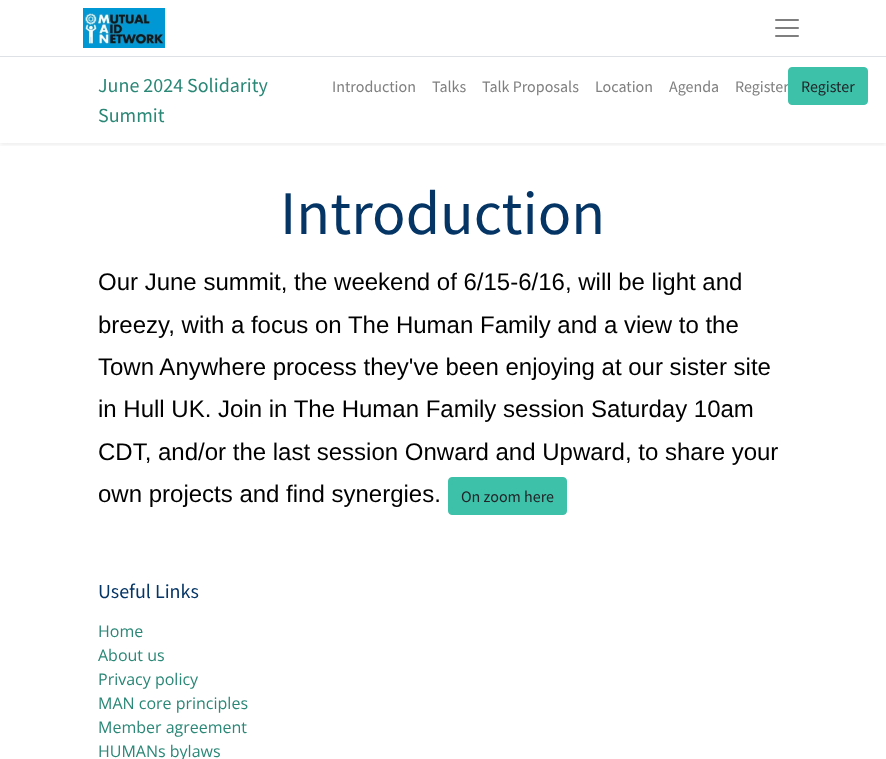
<!DOCTYPE html>
<meta charset="utf-8">
<style>body { margin: 0 } canvas { display: block }</style>
<canvas id="canvas" width="886" height="759"></canvas>
<img id="img1" src="img_01.png" hidden>
<img id="img2" src="img_02.png" hidden>
<script>
window.onload = function () {
	const canvas = document.getElementById("canvas");
	const ctx = canvas.getContext("2d");
	ctx.miterLimit = 4;
	ctx.fontKerning = "normal";
	function txt(s, x, y) {
		ctx.fillText(s, x, y);
	}
	function fill(x, y, w, h) {
		ctx.fillRect(x, y, w, h);
	}
	function img(id, x, y, w, h) {
		ctx.drawImage(document.getElementById(id), x, y, w, h);
	}

	ctx.fillStyle = "#FFFFFF";
	fill(0, 0, 886, 759);
	img("img1", 83, 8, 82, 40);
	img("img2", 775, 19, 24, 18);
	ctx.save();
	ctx.beginPath();
	ctx.rect(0, 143, 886, 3);
	ctx.clip();
	ctx.fillStyle = "rgba(0, 0, 0, 0.07)";
	ctx.filter = "blur(2px)";
	ctx.beginPath();
	ctx.rect(0, 58, 886, 87);
	ctx.fill();
	ctx.filter = "none";
	ctx.restore();
	ctx.fillStyle = "#DEE2E6";
	fill(0, 56, 886, 1);
	ctx.fillStyle = "#3DC1A9";
	ctx.beginPath();
	ctx.roundRect(448.5, 477.5, 118, 37, 3.5);
	ctx.fill();
	ctx.strokeStyle = "#3DC1A9";
	ctx.stroke();
	ctx.font = "20px Source Sans Pro";
	ctx.fillStyle = "#2B8776";
	txt("June 2024 Solidarity", 98, 92);
	txt("Summit", 98, 122);
	ctx.font = "16px Source Sans Pro";
	ctx.fillStyle = "#808080";
	txt("Introduction", 332, 92);
	txt("Talks", 432, 92);
	txt("Talk Proposals", 482, 92);
	txt("Location", 595, 92);
	txt("Agenda", 669, 92);
	txt("Register", 735, 92);
	ctx.fillStyle = "#3DC1A9";
	ctx.beginPath();
	ctx.roundRect(788.5, 67.5, 79, 37, 3.5);
	ctx.fill();
	ctx.stroke();
	ctx.fillStyle = "#212529";
	txt("Register", 801, 92);
	ctx.font = "62px Source Sans Pro";
	ctx.fillStyle = "#053565";
	txt("Introduction", 280, 234);
	ctx.font = "24px Liberation Sans";
	ctx.fillStyle = "#000000";
	txt("Our June summit, the weekend of 6/15-6/16, will be light and", 98, 290);
	txt("breezy, with a focus on The Human Family and a view to the", 98, 333);
	txt("Town Anywhere process they've been enjoying at our sister site", 98, 375);
	txt("in Hull UK. Join in The Human Family session Saturday 10am", 98, 417);
	txt("CDT, and/or the last session Onward and Upward, to share your", 98, 460);
	txt("own projects and find synergies.", 98, 502);
	ctx.font = "16px Source Sans Pro";
	ctx.fillStyle = "#212529";
	txt("On zoom here", 461, 502);
	ctx.font = "20px Source Sans Pro";
	ctx.fillStyle = "#053565";
	txt("Useful Links", 98, 598);
	ctx.font = "16px Open Sans";
	ctx.fillStyle = "#2B8776";
	txt("Home", 98, 637);
	txt("About us", 98, 661);
	txt("Privacy policy", 98, 685);
	txt("MAN core principles", 98, 709);
	txt("Member agreement", 98, 733);
	txt("HUMANs bylaws", 98, 757);
};
</script>
